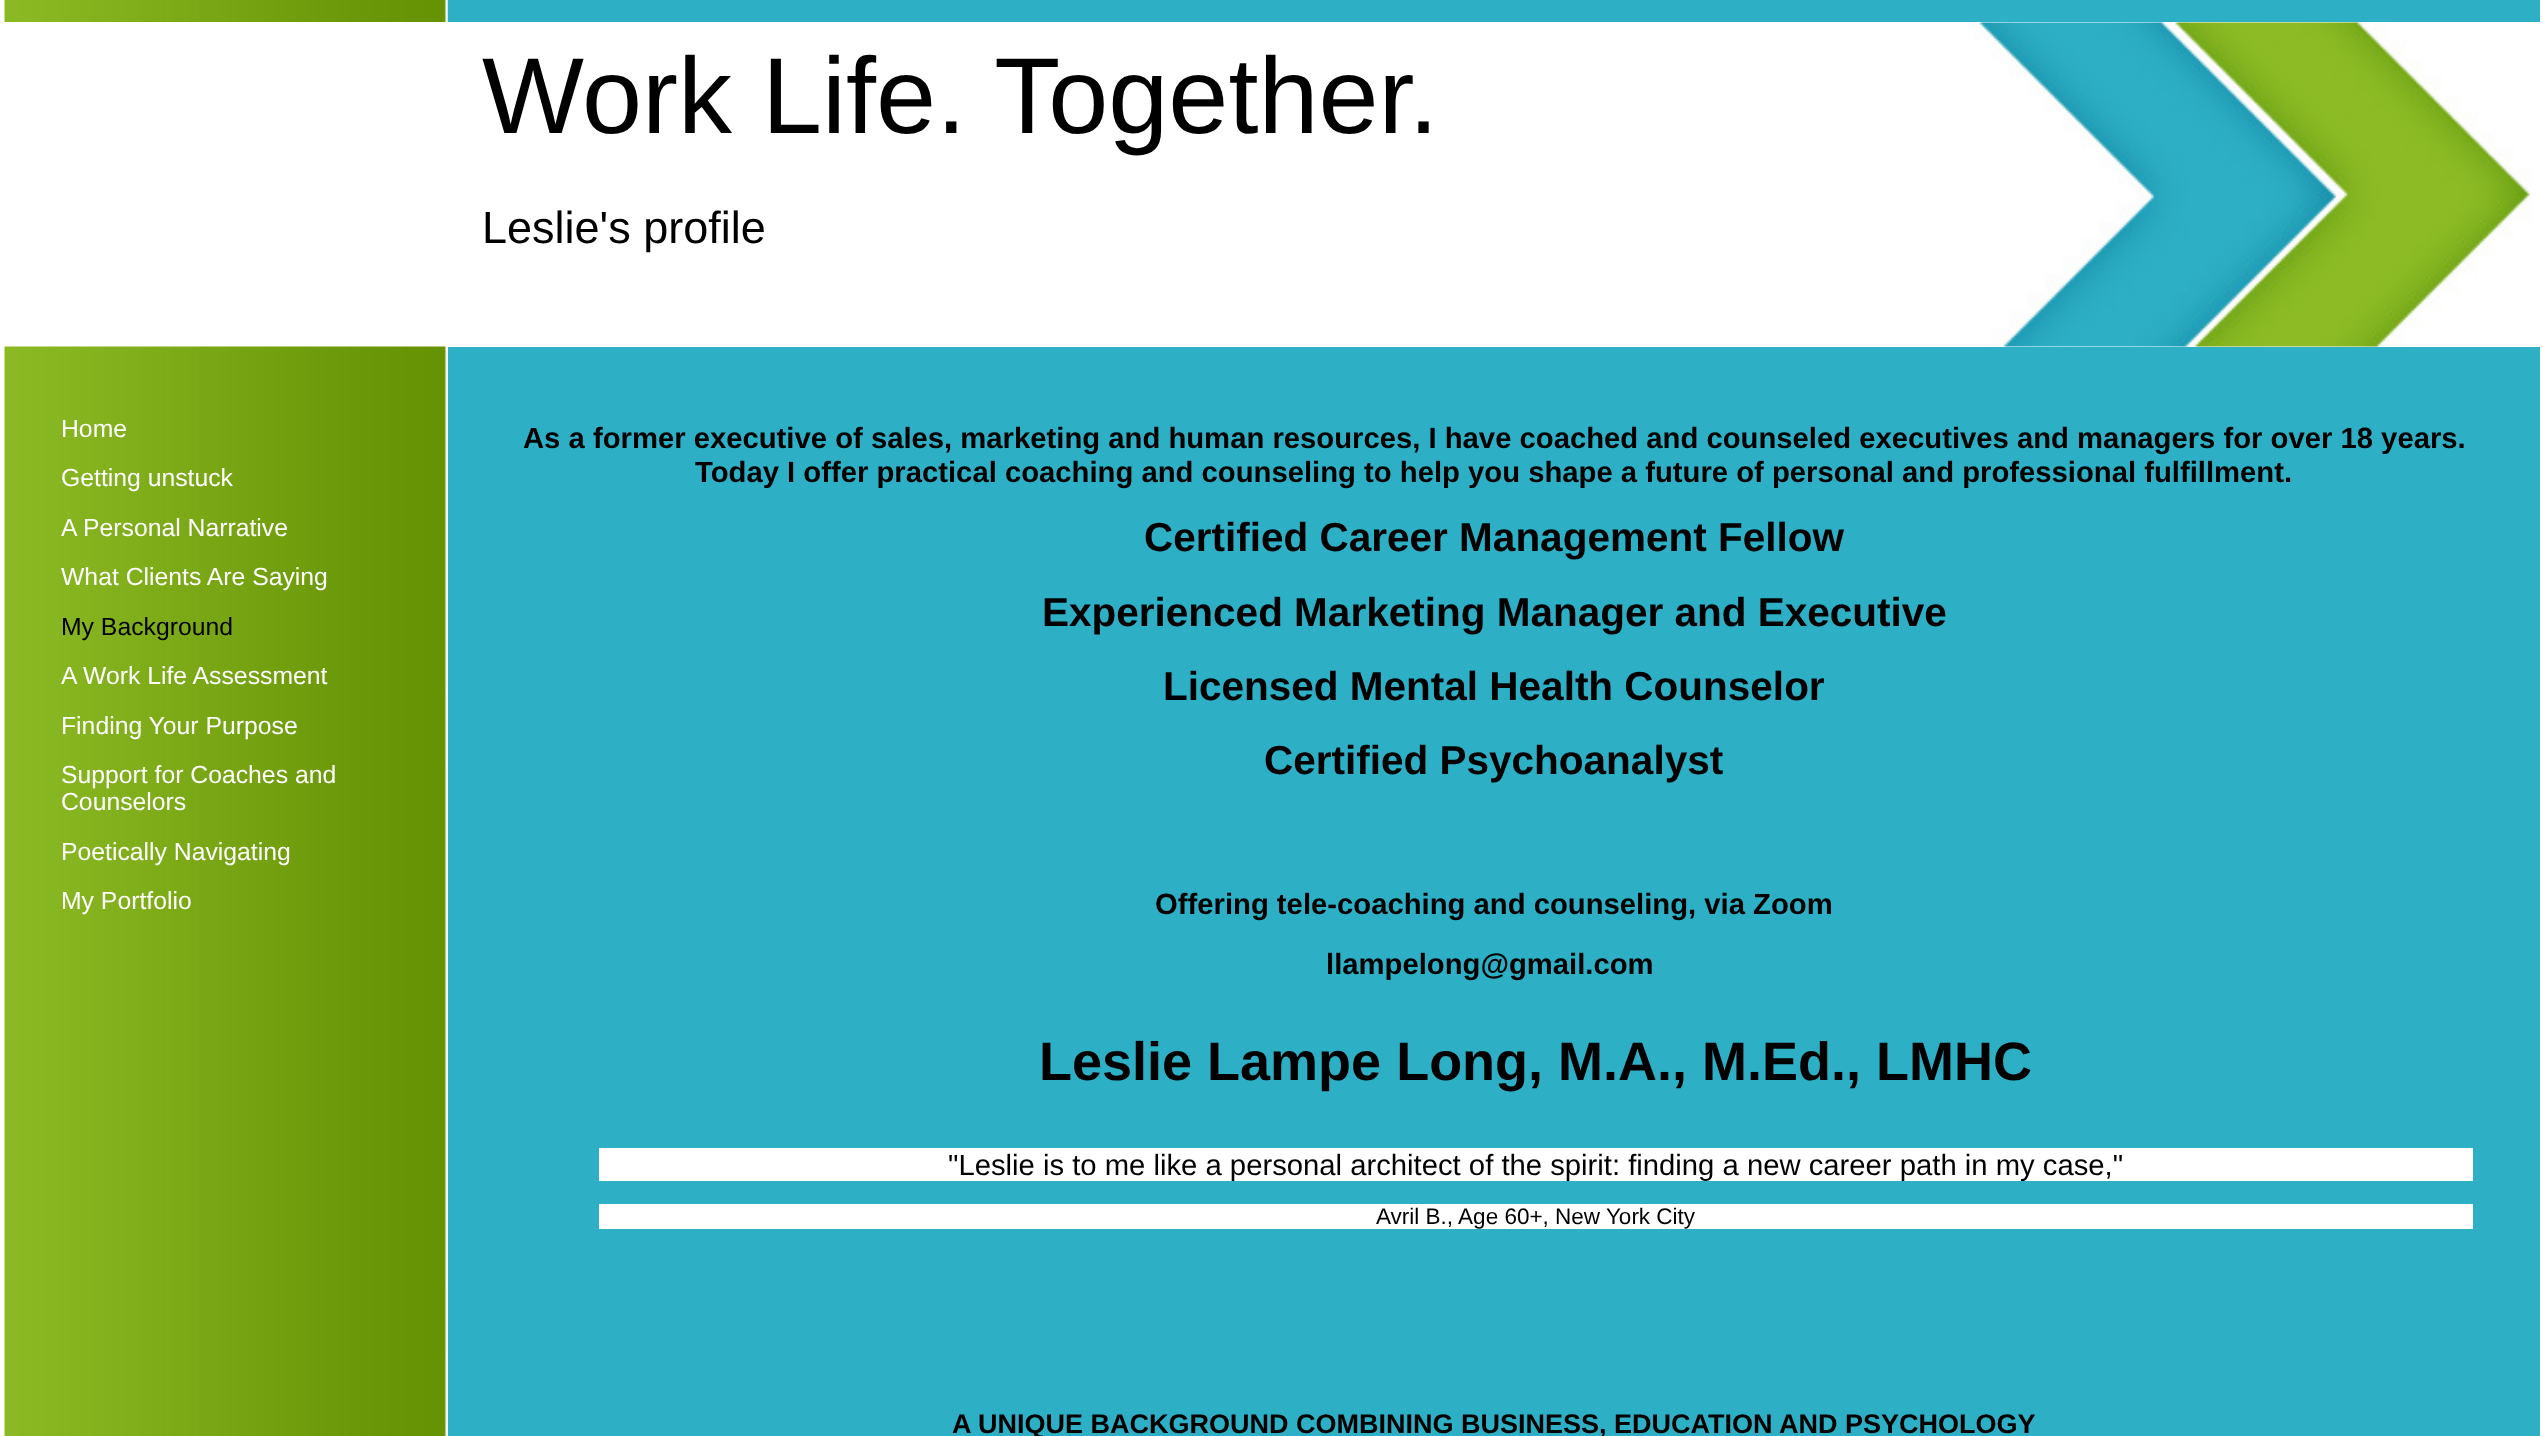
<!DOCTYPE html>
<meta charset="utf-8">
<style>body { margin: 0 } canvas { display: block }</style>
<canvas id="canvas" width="2543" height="1436"></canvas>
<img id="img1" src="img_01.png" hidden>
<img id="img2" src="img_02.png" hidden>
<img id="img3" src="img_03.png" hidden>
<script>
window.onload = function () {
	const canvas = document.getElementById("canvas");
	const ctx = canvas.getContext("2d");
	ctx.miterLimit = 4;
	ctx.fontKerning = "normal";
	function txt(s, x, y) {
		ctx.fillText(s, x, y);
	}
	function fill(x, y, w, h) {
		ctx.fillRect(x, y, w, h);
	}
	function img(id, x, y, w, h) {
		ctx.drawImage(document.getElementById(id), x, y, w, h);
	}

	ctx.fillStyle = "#FFFFFF";
	fill(0, 0, 2543, 1436);
	ctx.fillStyle = "#2DAFC5";
	fill(447, 0, 2093, 22);
	img("img1", 4, 0, 444, 22);
	img("img2", 1973, 22, 559, 325);
	img("img3", 4, 346, 443, 1090);
	fill(448, 347, 2092, 1089);
	ctx.fillStyle = "#FFFFFF";
	fill(599, 1148, 1874, 33);
	fill(599, 1204, 1874, 25);
	ctx.font = "108px Liberation Sans";
	ctx.fillStyle = "#000000";
	txt("Work Life. Together.", 482, 133);
	ctx.font = "45px Liberation Sans";
	txt("Leslie's profile", 482, 243);
	ctx.font = "24.75px Liberation Sans";
	ctx.fillStyle = "#FFFFFF";
	txt("Home", 61, 437);
	txt("Getting unstuck", 61, 486);
	txt("A Personal Narrative", 61, 536);
	txt("What Clients Are Saying", 61, 585);
	ctx.fillStyle = "#000000";
	txt("My Background", 61, 635);
	ctx.fillStyle = "#FFFFFF";
	txt("A Work Life Assessment", 61, 684);
	txt("Finding Your Purpose", 61, 734);
	txt("Support for Coaches and", 61, 783);
	txt("Counselors", 61, 810);
	txt("Poetically Navigating", 61, 860);
	txt("My Portfolio", 61, 909);
	ctx.font = "bold 29.25px Liberation Sans";
	ctx.fillStyle = "#000000";
	txt("As a former executive of sales, marketing and human resources, I have coached and counseled executives and managers for over 18 years.", 523, 448);
	txt("Today I offer practical coaching and counseling to help you shape a future of personal and professional fulfillment.", 695, 482);
	ctx.font = "bold 40.5px Liberation Sans";
	txt("Certified Career Management Fellow", 1144, 551);
	txt("Experienced Marketing Manager and Executive", 1042, 626);
	txt("Licensed Mental Health Counselor", 1163, 700);
	txt("Certified Psychoanalyst", 1264, 774);
	ctx.font = "bold 29.25px Liberation Sans";
	txt("Offering tele-coaching and counseling, via Zoom", 1155, 914);
	txt("llampelong@gmail.com", 1326, 974);
	ctx.font = "bold 54px Liberation Sans";
	txt("Leslie Lampe Long, M.A., M.Ed., LMHC", 1039, 1080);
	ctx.font = "29.25px Liberation Sans";
	txt("\"Leslie is to me like a personal architect of the spirit: finding a new career path in my case,\"", 948, 1175);
	ctx.font = "22.5px Liberation Sans";
	txt("Avril B., Age 60+, New York City", 1376, 1224);
	ctx.font = "bold 27px Liberation Sans";
	txt("A UNIQUE BACKGROUND COMBINING BUSINESS, EDUCATION", 952, 1433);
	txt("AND PSYCHOLOGY", 1779, 1433);
};
</script>
